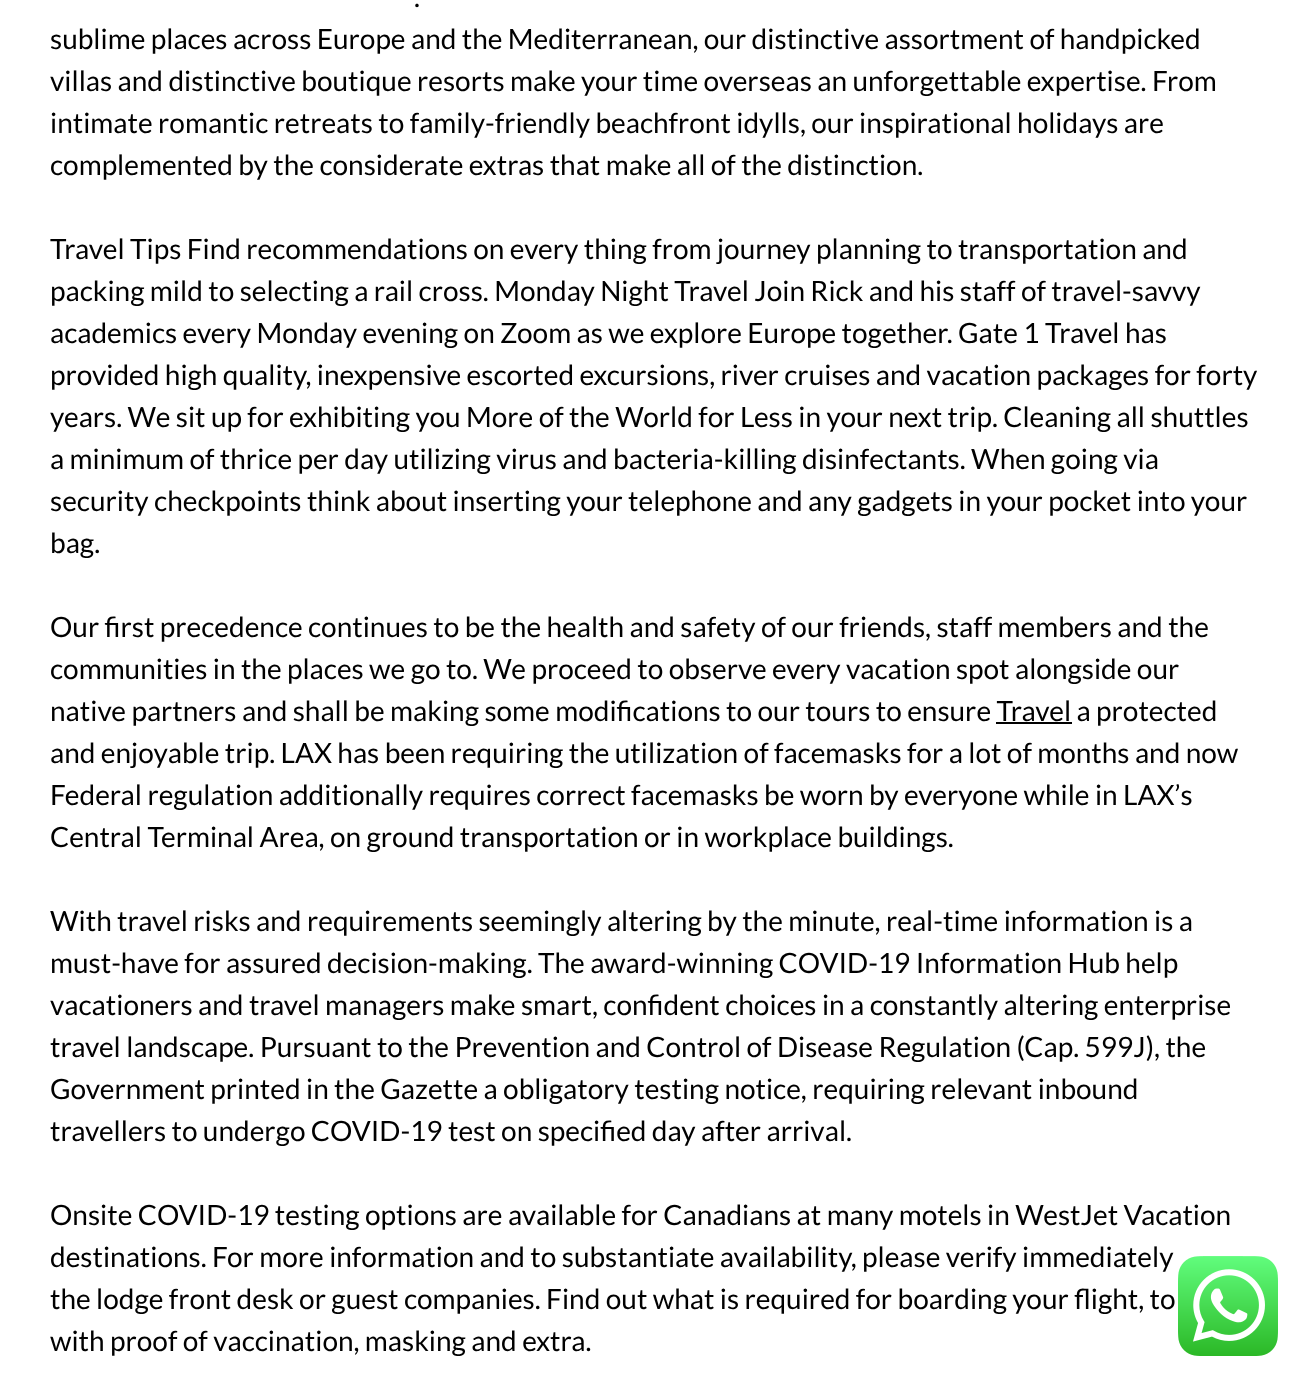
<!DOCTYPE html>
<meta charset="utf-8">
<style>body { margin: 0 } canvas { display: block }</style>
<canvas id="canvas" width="1307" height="1385"></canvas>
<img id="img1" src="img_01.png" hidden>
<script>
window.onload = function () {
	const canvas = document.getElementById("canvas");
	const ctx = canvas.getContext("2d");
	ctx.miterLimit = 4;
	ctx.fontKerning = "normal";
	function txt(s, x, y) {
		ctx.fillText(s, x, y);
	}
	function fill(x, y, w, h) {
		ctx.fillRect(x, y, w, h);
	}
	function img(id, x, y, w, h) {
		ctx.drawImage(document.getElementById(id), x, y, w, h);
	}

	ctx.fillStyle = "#FFFFFF";
	fill(0, 0, 1307, 1385);
	ctx.fillStyle = "#000000";
	fill(996, 722, 76, 2);
	img("img1", 1178, 1256, 100, 100);
	ctx.font = "28px Lato";
	txt(".", 414, 7);
	txt("sublime places across Europe and the Mediterranean, our distinctive assortment of handpicked", 50, 49);
	txt("villas and distinctive boutique resorts make your time overseas an unforgettable expertise. From", 50, 91);
	txt("intimate romantic retreats to family-friendly beachfront idylls, our inspirational holidays are", 50, 133);
	txt("complemented by the considerate extras that make all of the distinction.", 50, 175);
	txt("Travel Tips Find recommendations on every thing from journey planning to transportation and", 50, 259);
	txt("packing mild to selecting a rail cross. Monday Night Travel Join Rick and his staff of travel-savvy", 50, 301);
	txt("academics every Monday evening on Zoom as we explore Europe together. Gate 1 Travel has", 50, 343);
	txt("provided high quality, inexpensive escorted excursions, river cruises and vacation packages for forty", 50, 385);
	txt("years. We sit up for exhibiting you More of the World for Less in your next trip. Cleaning all shuttles", 50, 427);
	txt("a minimum of thrice per day utilizing virus and bacteria-killing disinfectants. When going via", 50, 469);
	txt("security checkpoints think about inserting your telephone and any gadgets in your pocket into your", 50, 511);
	txt("bag.", 50, 553);
	txt("Our first precedence continues to be the health and safety of our friends, staff members and the", 50, 637);
	txt("communities in the places we go to. We proceed to observe every vacation spot alongside our", 50, 679);
	txt("native partners and shall be making some modifications to our tours to ensure Travel a protected", 50, 721);
	txt("and enjoyable trip. LAX has been requiring the utilization of facemasks for a lot of months and now", 50, 763);
	txt("Federal regulation additionally requires correct facemasks be worn by everyone while in LAX’s", 50, 805);
	txt("Central Terminal Area, on ground transportation or in workplace buildings.", 50, 847);
	txt("With travel risks and requirements seemingly altering by the minute, real-time information is a", 50, 931);
	txt("must-have for assured decision-making. The award-winning COVID-19 Information Hub help", 50, 973);
	txt("vacationers and travel managers make smart, confident choices in a constantly altering enterprise", 50, 1015);
	txt("travel landscape. Pursuant to the Prevention and Control of Disease Regulation (Cap. 599J), the", 50, 1057);
	txt("Government printed in the Gazette a obligatory testing notice, requiring relevant inbound", 50, 1099);
	txt("travellers to undergo COVID-19 test on specified day after arrival.", 50, 1141);
	txt("Onsite COVID-19 testing options are available for Canadians at many motels in WestJet Vacation", 50, 1225);
	txt("destinations. For more information and to substantiate availability, please verify immediately", 50, 1267);
	txt("the lodge front desk or guest companies. Find out what is required for boarding your flight, to", 50, 1309);
	txt("with proof of vaccination, masking and extra.", 50, 1351);
};
</script>
